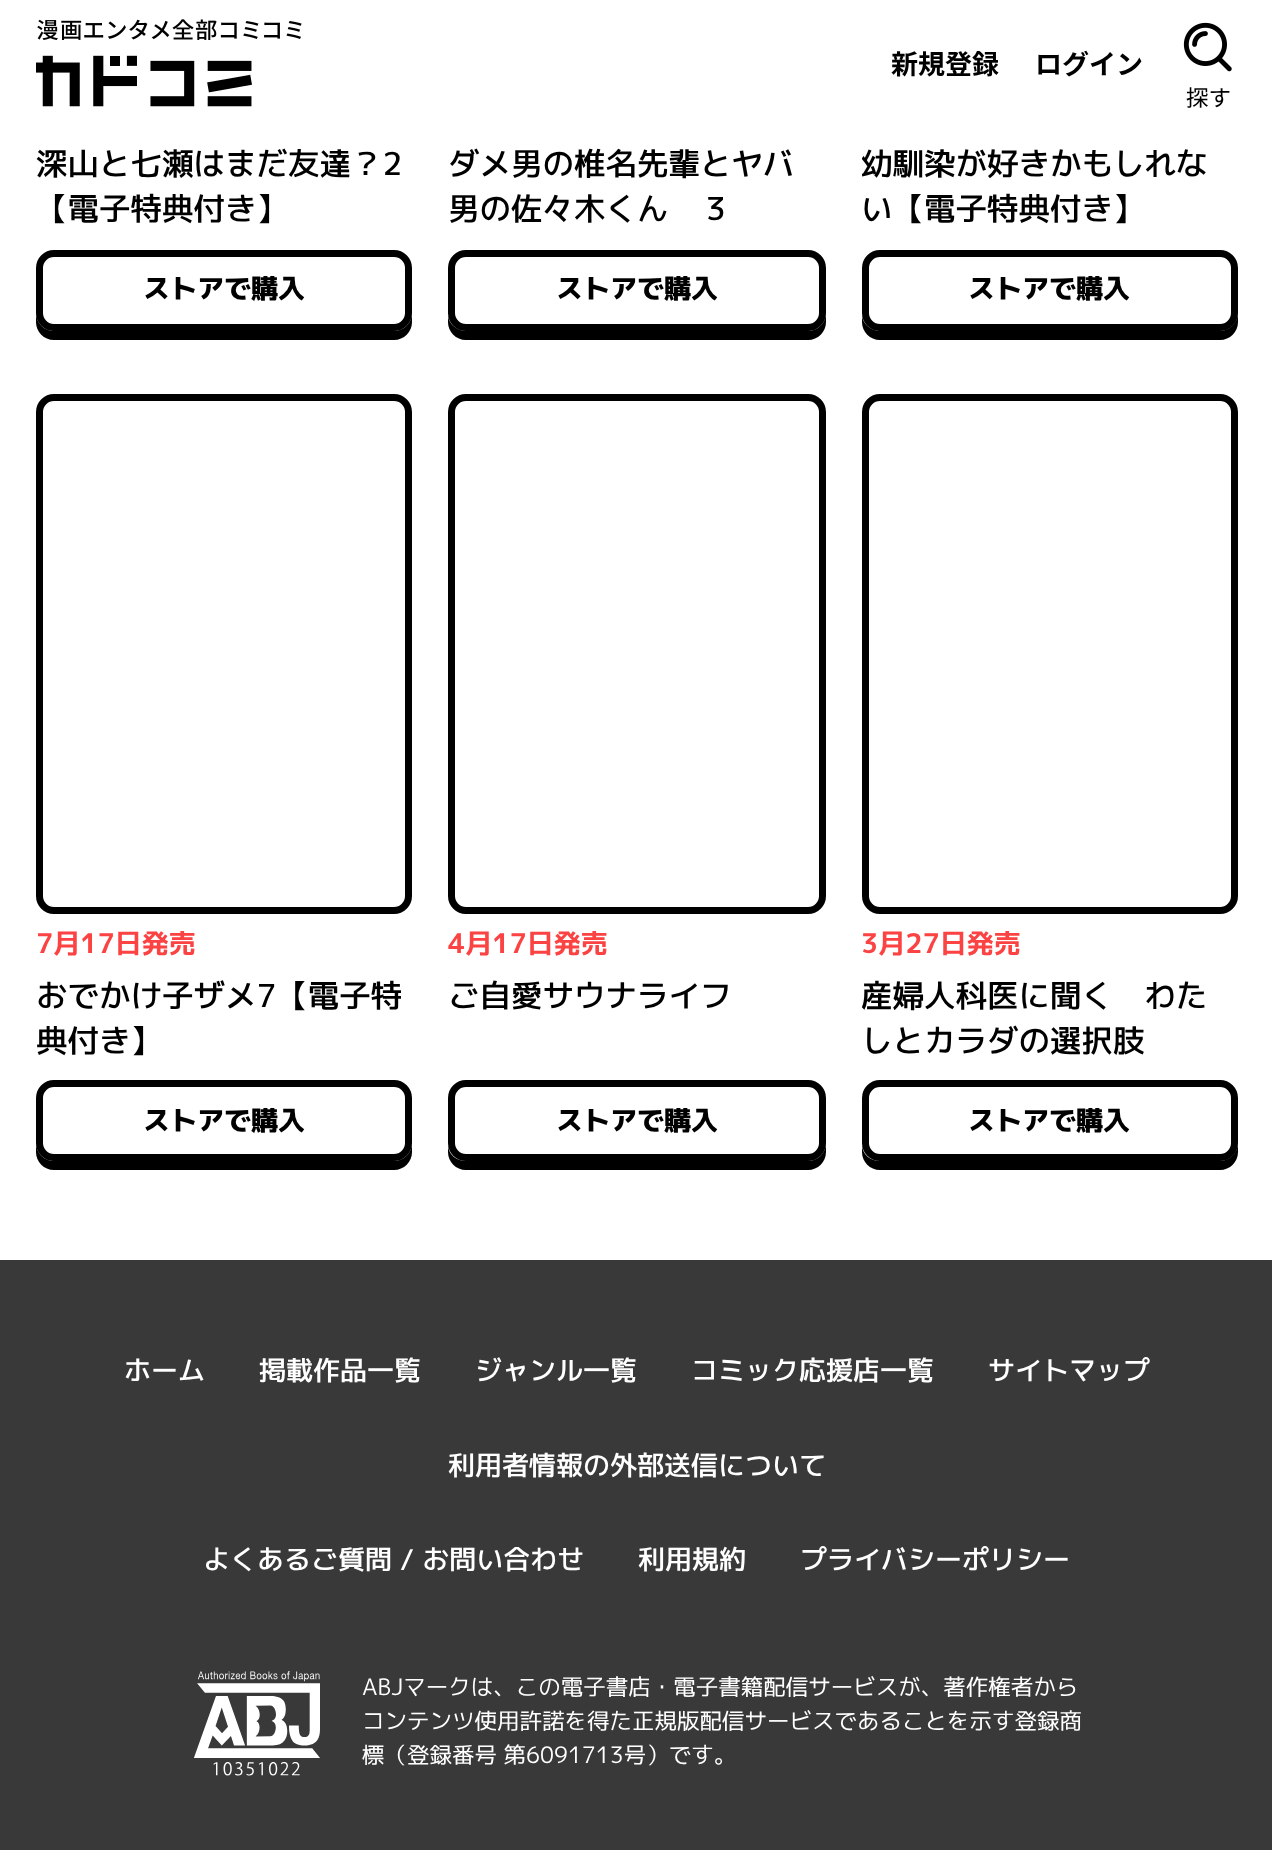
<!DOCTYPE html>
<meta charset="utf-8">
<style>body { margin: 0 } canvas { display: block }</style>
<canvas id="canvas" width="1272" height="1850"></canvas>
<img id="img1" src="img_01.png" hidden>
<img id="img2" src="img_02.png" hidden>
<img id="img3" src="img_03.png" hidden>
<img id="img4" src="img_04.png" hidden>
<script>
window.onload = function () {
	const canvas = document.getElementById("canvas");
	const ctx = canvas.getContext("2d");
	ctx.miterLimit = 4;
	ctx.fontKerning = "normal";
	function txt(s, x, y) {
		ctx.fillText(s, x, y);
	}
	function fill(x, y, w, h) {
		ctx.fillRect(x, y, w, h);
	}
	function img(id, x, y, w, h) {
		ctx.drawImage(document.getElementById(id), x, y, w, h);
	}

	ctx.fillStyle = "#FFFFFF";
	fill(0, 0, 1272, 1850);
	img("img1", 37, 19, 265, 21);
	img("img2", 36, 55, 216, 52);
	img("img3", 1183, 22, 49, 50);
	ctx.fillStyle = "#000000";
	ctx.beginPath();
	ctx.moveTo(36, 313);
	ctx.lineTo(36, 322);
	ctx.bezierCurveTo(36, 332, 44, 340, 54, 340);
	ctx.lineTo(394, 340);
	ctx.bezierCurveTo(404, 340, 412, 332, 412, 322);
	ctx.lineTo(412, 274);
	ctx.lineTo(412, 313);
	ctx.bezierCurveTo(412, 323, 404, 331, 394, 331);
	ctx.lineTo(54, 331);
	ctx.bezierCurveTo(44, 331, 36, 323, 36, 313);
	ctx.closePath();
	ctx.fill();
	ctx.fillStyle = "#FFFFFF";
	ctx.beginPath();
	ctx.roundRect(39.5, 253.5, 369, 74, 14.5);
	ctx.fill();
	ctx.strokeStyle = "#000000";
	ctx.lineWidth = 7;
	ctx.stroke();
	ctx.fillStyle = "#000000";
	ctx.beginPath();
	ctx.moveTo(448, 316);
	ctx.lineTo(448, 322);
	ctx.bezierCurveTo(448, 332, 456, 340, 466, 340);
	ctx.lineTo(808, 340);
	ctx.bezierCurveTo(818, 340, 826, 332, 826, 322);
	ctx.lineTo(826, 274);
	ctx.lineTo(826, 313);
	ctx.bezierCurveTo(826, 323, 818, 331, 808, 331);
	ctx.lineTo(466, 331);
	ctx.bezierCurveTo(457, 331, 449, 324, 448, 316);
	ctx.closePath();
	ctx.fill();
	ctx.fillStyle = "#FFFFFF";
	ctx.beginPath();
	ctx.roundRect(451.5, 253.5, 371, 74, 14.5);
	ctx.fill();
	ctx.stroke();
	ctx.fillStyle = "#000000";
	ctx.beginPath();
	ctx.moveTo(862, 316);
	ctx.lineTo(862, 322);
	ctx.bezierCurveTo(862, 332, 870, 340, 880, 340);
	ctx.lineTo(1220, 340);
	ctx.bezierCurveTo(1230, 340, 1238, 332, 1238, 322);
	ctx.lineTo(1238, 277);
	ctx.lineTo(1238, 273);
	ctx.lineTo(1238, 313);
	ctx.bezierCurveTo(1238, 323, 1229, 331, 1220, 331);
	ctx.lineTo(880, 331);
	ctx.bezierCurveTo(871, 331, 863, 324, 862, 316);
	ctx.closePath();
	ctx.fill();
	ctx.fillStyle = "#FFFFFF";
	ctx.beginPath();
	ctx.roundRect(865.5, 253.5, 369, 74, 14.5);
	ctx.fill();
	ctx.stroke();
	ctx.beginPath();
	ctx.roundRect(39.5, 397.5, 369, 513, 14.5);
	ctx.stroke();
	ctx.fillStyle = "#000000";
	ctx.beginPath();
	ctx.moveTo(36, 1143);
	ctx.lineTo(36, 1152);
	ctx.bezierCurveTo(36, 1162, 44, 1170, 54, 1170);
	ctx.lineTo(394, 1170);
	ctx.bezierCurveTo(404, 1170, 412, 1162, 412, 1152);
	ctx.lineTo(412, 1104);
	ctx.lineTo(412, 1143);
	ctx.bezierCurveTo(412, 1153, 404, 1161, 394, 1161);
	ctx.lineTo(54, 1161);
	ctx.bezierCurveTo(44, 1161, 36, 1153, 36, 1143);
	ctx.closePath();
	ctx.fill();
	ctx.fillStyle = "#FFFFFF";
	ctx.beginPath();
	ctx.roundRect(39.5, 1083.5, 369, 74, 14.5);
	ctx.fill();
	ctx.stroke();
	ctx.beginPath();
	ctx.roundRect(451.5, 397.5, 371, 513, 14.5);
	ctx.stroke();
	ctx.fillStyle = "#000000";
	ctx.beginPath();
	ctx.moveTo(448, 1146);
	ctx.lineTo(448, 1152);
	ctx.bezierCurveTo(448, 1162, 456, 1170, 466, 1170);
	ctx.lineTo(808, 1170);
	ctx.bezierCurveTo(818, 1170, 826, 1162, 826, 1152);
	ctx.lineTo(826, 1104);
	ctx.lineTo(826, 1143);
	ctx.bezierCurveTo(826, 1153, 818, 1161, 808, 1161);
	ctx.lineTo(466, 1161);
	ctx.bezierCurveTo(457, 1161, 449, 1155, 448, 1146);
	ctx.closePath();
	ctx.fill();
	ctx.fillStyle = "#FFFFFF";
	ctx.beginPath();
	ctx.roundRect(451.5, 1083.5, 371, 74, 14.5);
	ctx.fill();
	ctx.stroke();
	ctx.beginPath();
	ctx.roundRect(865.5, 397.5, 369, 513, 14.5);
	ctx.stroke();
	ctx.fillStyle = "#000000";
	ctx.beginPath();
	ctx.moveTo(862, 1146);
	ctx.lineTo(862, 1152);
	ctx.bezierCurveTo(862, 1162, 870, 1170, 880, 1170);
	ctx.lineTo(1220, 1170);
	ctx.bezierCurveTo(1230, 1170, 1238, 1162, 1238, 1152);
	ctx.lineTo(1238, 1107);
	ctx.lineTo(1238, 1103);
	ctx.lineTo(1238, 1143);
	ctx.bezierCurveTo(1238, 1153, 1229, 1161, 1220, 1161);
	ctx.lineTo(880, 1161);
	ctx.bezierCurveTo(871, 1161, 863, 1155, 862, 1146);
	ctx.closePath();
	ctx.fill();
	ctx.fillStyle = "#FFFFFF";
	ctx.beginPath();
	ctx.roundRect(865.5, 1083.5, 369, 74, 14.5);
	ctx.fill();
	ctx.stroke();
	ctx.fillStyle = "#393939";
	fill(0, 1260, 1272, 590);
	img("img4", 194, 1671, 126, 105);
	ctx.font = "bold 27px Noto Sans JP";
	ctx.fillStyle = "#000000";
	txt("新規登録", 891, 74);
	txt("ログイン", 1035, 74);
	ctx.font = "22.5px Noto Sans JP";
	txt("探す", 1186, 106);
	ctx.font = "500 31.5px 'M PLUS 1p'";
	txt("深山と七瀬はまだ友達？2", 36, 175);
	txt("【電子特典付き】", 36, 220);
	ctx.font = "800 27px 'M PLUS 1p'";
	txt("ストアで購入", 143, 298);
	ctx.font = "500 31.5px 'M PLUS 1p'";
	txt("ダメ男の椎名先輩とヤバ", 448, 175);
	txt("男の佐々木くん　３", 448, 220);
	ctx.font = "800 27px 'M PLUS 1p'";
	txt("ストアで購入", 556, 298);
	ctx.save();
	ctx.beginPath();
	ctx.rect(862, 142, 376, 90);
	ctx.clip();
	ctx.font = "500 31.5px 'M PLUS 1p'";
	txt("幼馴染が好きかもしれな", 861, 175);
	ctx.restore();
	ctx.font = "500 31.5px 'M PLUS 1p'";
	txt("い【電子特典付き】", 861, 220);
	ctx.font = "800 27px 'M PLUS 1p'";
	txt("ストアで購入", 968, 298);
	ctx.font = "bold 27px 'M PLUS 1p'";
	ctx.fillStyle = "#FC4343";
	txt("7月17日発売", 36, 953);
	ctx.font = "500 31.5px 'M PLUS 1p'";
	ctx.fillStyle = "#000000";
	txt("おでかけ子ザメ7【電子特", 36, 1007);
	txt("典付き】", 36, 1052);
	ctx.font = "800 27px 'M PLUS 1p'";
	txt("ストアで購入", 143, 1130);
	ctx.font = "bold 27px 'M PLUS 1p'";
	ctx.fillStyle = "#FC4343";
	txt("4月17日発売", 448, 953);
	ctx.font = "500 31.5px 'M PLUS 1p'";
	ctx.fillStyle = "#000000";
	txt("ご自愛サウナライフ", 448, 1007);
	ctx.font = "800 27px 'M PLUS 1p'";
	txt("ストアで購入", 556, 1130);
	ctx.font = "bold 27px 'M PLUS 1p'";
	ctx.fillStyle = "#FC4343";
	txt("3月27日発売", 861, 953);
	ctx.font = "500 31.5px 'M PLUS 1p'";
	ctx.fillStyle = "#000000";
	txt("産婦人科医に聞く　わた", 861, 1007);
	txt("しとカラダの選択肢", 861, 1052);
	ctx.font = "800 27px 'M PLUS 1p'";
	txt("ストアで購入", 968, 1130);
	ctx.font = "500 27px 'M PLUS 1p'";
	ctx.fillStyle = "#FFFFFF";
	txt("ホーム", 124, 1380);
	txt("掲載作品一覧", 259, 1380);
	txt("ジャンル一覧", 475, 1380);
	txt("コミック応援店一覧", 691, 1380);
	txt("サイトマップ", 988, 1380);
	txt("利用者情報の外部送信について", 448, 1475);
	txt("よくあるご質問 / お問い合わせ", 203, 1569);
	txt("利用規約", 638, 1569);
	txt("プライバシーポリシー", 800, 1569);
	ctx.font = "22.5px 'M PLUS 1p'";
	txt("ABJマークは、この電子書店・電子書籍配信サービスが、著作権者から", 362, 1695);
	txt("コンテンツ使用許諾を得た正規版配信サービスであることを示す登録商", 362, 1729);
	txt("標（登録番号 第6091713号）です。", 362, 1763);
};
</script>
